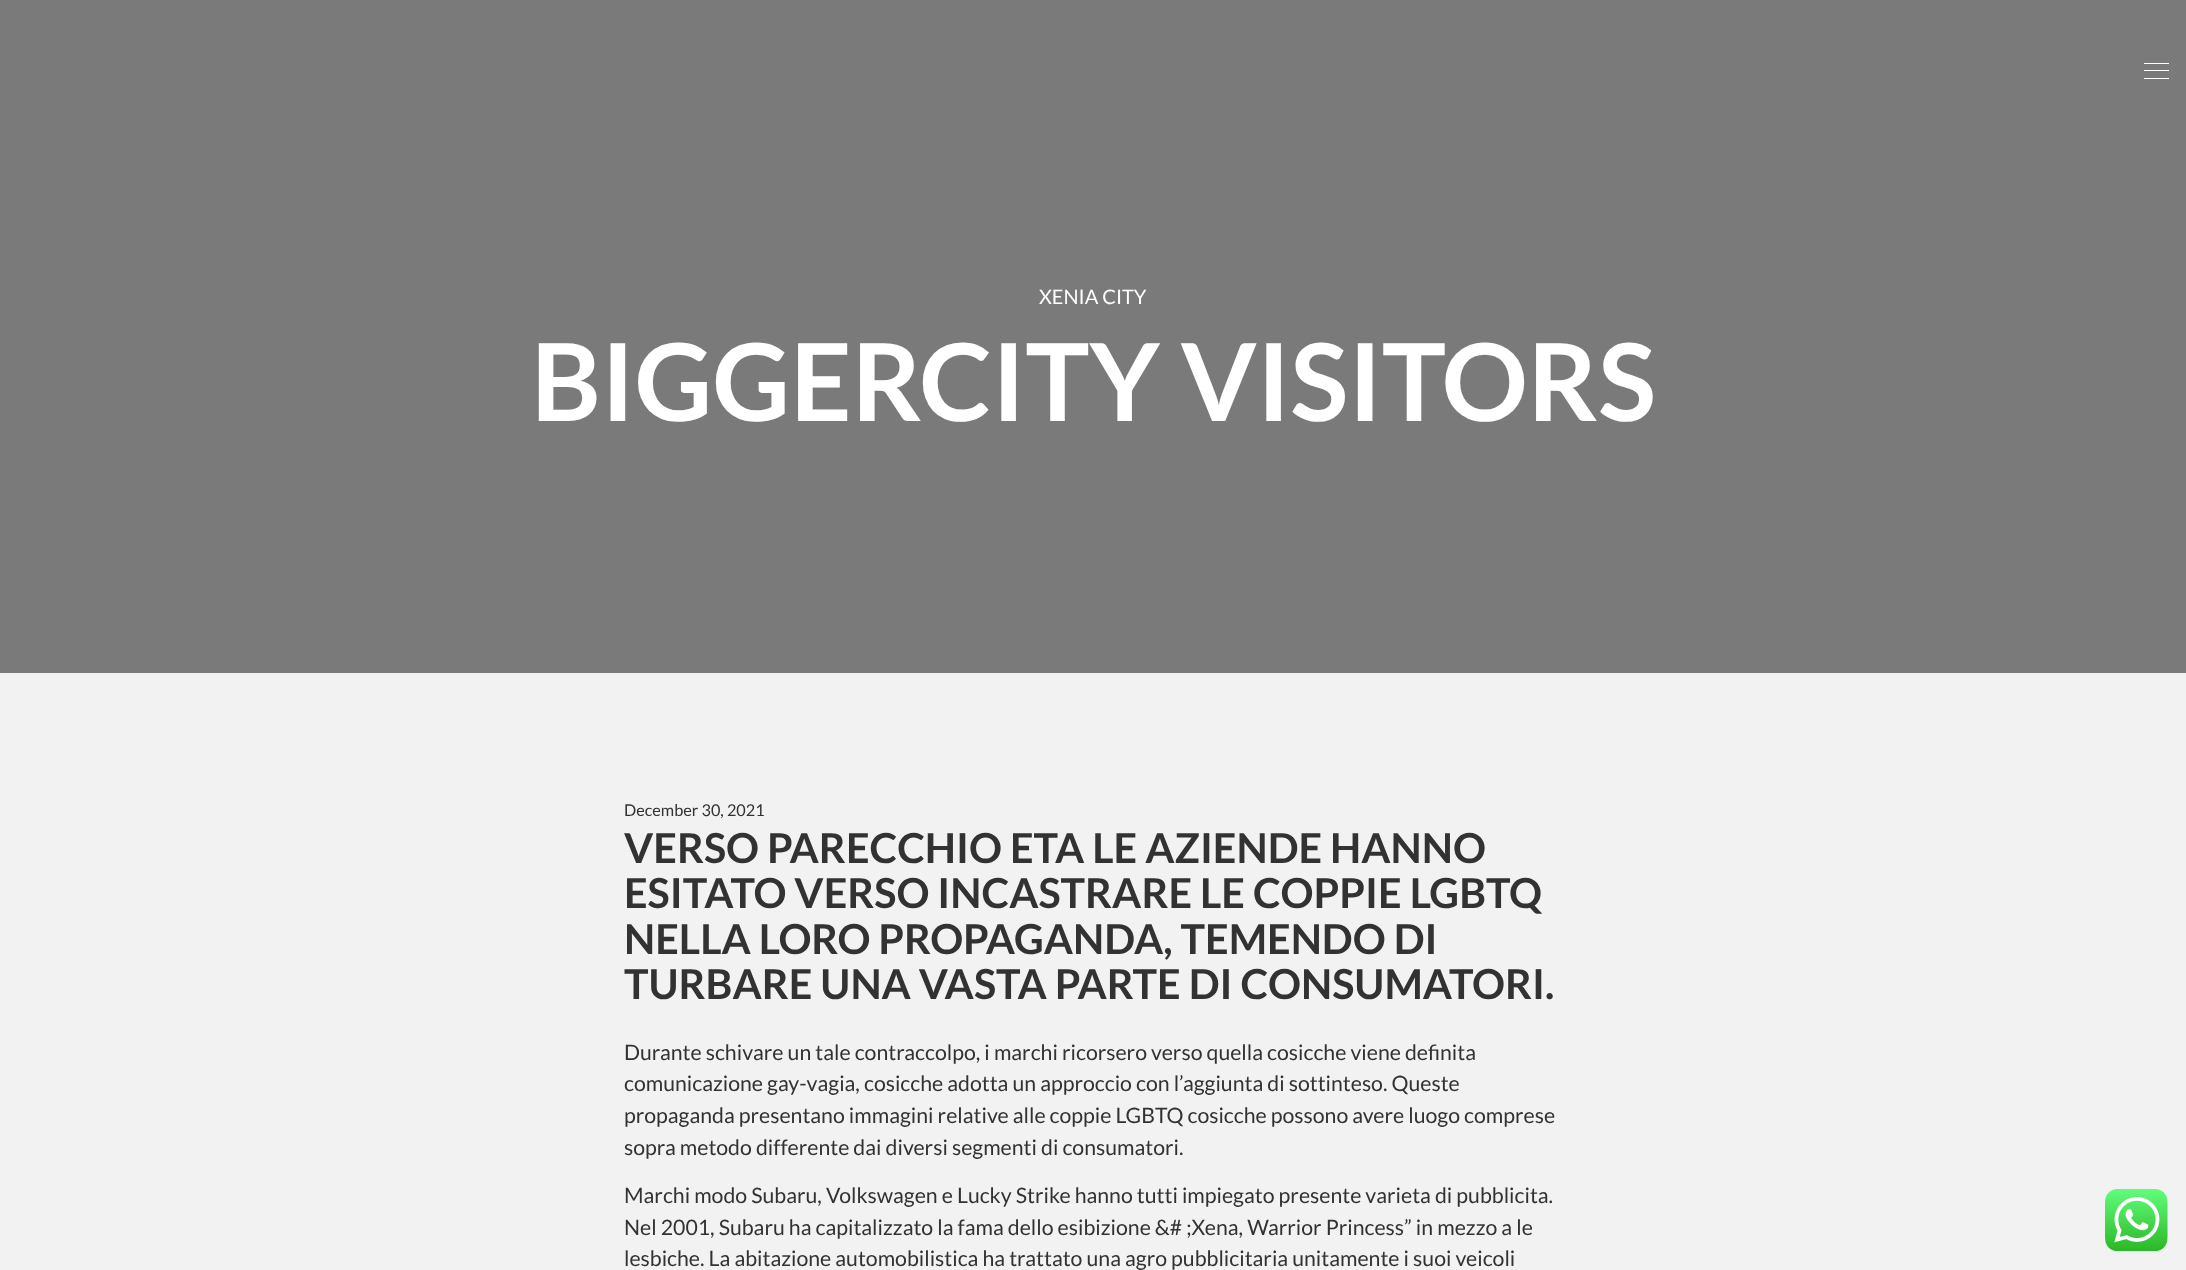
<!DOCTYPE html>
<meta charset="utf-8">
<style>body { margin: 0 } canvas { display: block }</style>
<canvas id="canvas" width="2186" height="1270"></canvas>
<img id="img1" src="img_01.png" hidden>
<script>
window.onload = function () {
	const canvas = document.getElementById("canvas");
	const ctx = canvas.getContext("2d");
	ctx.miterLimit = 4;
	ctx.fontKerning = "normal";
	function txt(s, x, y) {
		ctx.fillText(s, x, y);
	}
	function fill(x, y, w, h) {
		ctx.fillRect(x, y, w, h);
	}
	function img(id, x, y, w, h) {
		ctx.drawImage(document.getElementById(id), x, y, w, h);
	}

	ctx.fillStyle = "#F2F2F2";
	fill(0, 0, 2186, 1270);
	ctx.fillStyle = "#7A7A7A";
	fill(0, 0, 2186, 673);
	ctx.fillStyle = "#FFFFFF";
	fill(2144, 63, 25, 1);
	fill(2144, 70, 25, 1);
	fill(2144, 78, 25, 1);
	img("img1", 2105, 1189, 63, 62);
	ctx.font = "20px Lato";
	txt("XENIA CITY", 1039, 304);
	ctx.font = "bold 107.5px Lato";
	txt("BIGGERCITY VISITORS", 531, 421);
	ctx.font = "16.25px Lato";
	ctx.fillStyle = "#323232";
	txt("December 30, 2021", 624, 816);
	ctx.font = "bold 41.25px Lato";
	txt("VERSO PARECCHIO ETA LE AZIENDE HANNO", 624, 863);
	txt("ESITATO VERSO INCASTRARE LE COPPIE LGBTQ", 624, 908);
	txt("NELLA LORO PROPAGANDA, TEMENDO DI", 624, 954);
	txt("TURBARE UNA VASTA PARTE DI CONSUMATORI.", 624, 999);
	ctx.font = "21.25px Lato";
	txt("Durante schivare un tale contraccolpo, i marchi ricorsero verso quella cosicche viene definita", 624, 1060);
	txt("comunicazione gay-vagia, cosicche adotta un approccio con l’aggiunta di sottinteso. Queste", 624, 1091);
	txt("propaganda presentano immagini relative alle coppie LGBTQ cosicche possono avere luogo comprese", 624, 1123);
	txt("sopra metodo differente dai diversi segmenti di consumatori.", 624, 1155);
	txt("Marchi modo Subaru, Volkswagen e Lucky Strike hanno tutti impiegato presente varieta di pubblicita.", 624, 1203);
	txt("Nel 2001, Subaru ha capitalizzato la fama dello esibizione &# ;Xena, Warrior Princess” in mezzo a le", 624, 1235);
	txt("lesbiche. La abitazione automobilistica ha trattato una agro pubblicitaria unitamente i suoi veicoli", 624, 1266);
};
</script>
